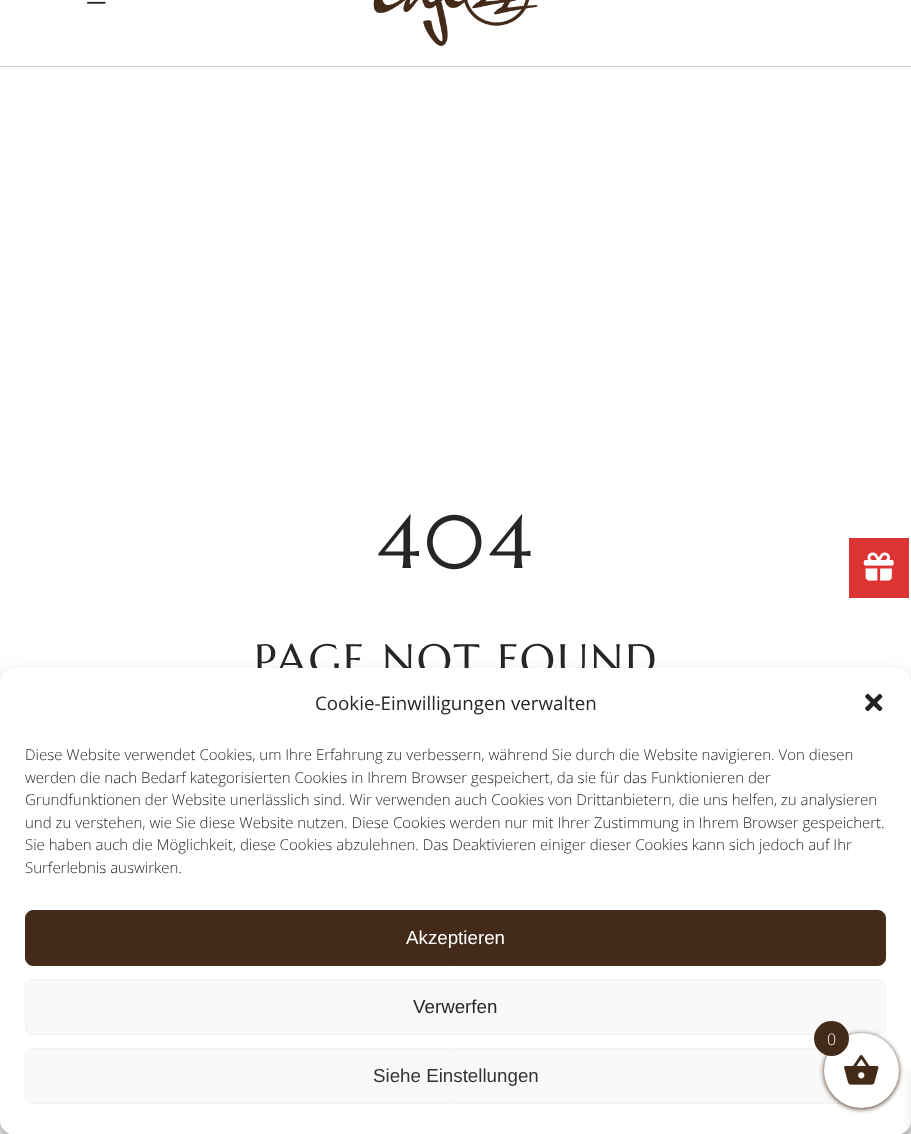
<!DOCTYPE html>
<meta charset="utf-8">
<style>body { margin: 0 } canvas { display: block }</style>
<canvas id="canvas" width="911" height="1134"></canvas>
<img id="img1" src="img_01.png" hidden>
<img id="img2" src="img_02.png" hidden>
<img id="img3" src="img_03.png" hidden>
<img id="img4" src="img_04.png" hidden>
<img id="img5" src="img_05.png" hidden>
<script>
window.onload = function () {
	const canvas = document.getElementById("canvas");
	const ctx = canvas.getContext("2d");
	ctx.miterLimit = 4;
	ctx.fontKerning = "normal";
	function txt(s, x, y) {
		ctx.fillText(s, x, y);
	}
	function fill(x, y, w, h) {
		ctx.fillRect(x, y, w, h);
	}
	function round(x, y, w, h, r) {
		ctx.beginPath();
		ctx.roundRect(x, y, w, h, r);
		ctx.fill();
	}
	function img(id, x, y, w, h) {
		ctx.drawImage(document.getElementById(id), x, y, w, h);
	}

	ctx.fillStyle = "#FFFFFF";
	fill(0, 0, 911, 1134);
	ctx.fillStyle = "#CCCCCC";
	fill(0, 66, 911, 1);
	img("img1", 86, 1, 20, 3);
	img("img2", 373, 0, 165, 47);
	ctx.fillStyle = "#DD3333";
	fill(849, 538, 60, 60);
	img("img3", 863, 552, 31, 29);
	ctx.fillStyle = "rgba(0, 0, 0, 0.23)";
	ctx.filter = "blur(4px)";
	ctx.beginPath();
	ctx.roundRect(0, 675, 911, 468, 15);
	ctx.fill();
	ctx.filter = "none";
	ctx.fillStyle = "rgba(0, 0, 0, 0.19)";
	ctx.filter = "blur(12.5px)";
	ctx.beginPath();
	ctx.roundRect(0, 680, 911, 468, 15);
	ctx.fill();
	ctx.filter = "none";
	ctx.letterSpacing = "4px";
	ctx.font = "75px Marcellus";
	ctx.fillStyle = "#262626";
	txt("404", 377, 568);
	ctx.letterSpacing = "2.25px";
	ctx.font = "43.75px Marcellus";
	txt("PAGE NOT FOUND", 254, 675);
	ctx.fillStyle = "#FFFFFF";
	round(0, 668, 911, 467, 15);
	ctx.letterSpacing = "0px";
	ctx.font = "18.75px Open Sans";
	ctx.fillStyle = "#262626";
	txt("Cookie-Einwilligungen verwalten", 315, 710);
	img("img4", 865, 693, 18, 19);
	ctx.font = "300 15px Open Sans";
	txt("Diese Website verwendet Cookies, um Ihre Erfahrung zu verbessern, während Sie durch die Website navigieren. Von diesen", 25, 760);
	txt("werden die nach Bedarf kategorisierten Cookies in Ihrem Browser gespeichert, da sie für das Funktionieren der", 25, 783);
	txt("Grundfunktionen der Website unerlässlich sind. Wir verwenden auch Cookies von Drittanbietern, die uns helfen, zu analysieren", 25, 805);
	txt("und zu verstehen, wie Sie diese Website nutzen. Diese Cookies werden nur mit Ihrer Zustimmung in Ihrem Browser gespeichert.", 25, 828);
	txt("Sie haben auch die Möglichkeit, diese Cookies abzulehnen. Das Deaktivieren einiger dieser Cookies kann sich jedoch auf Ihr", 25, 850);
	txt("Surferlebnis auswirken.", 25, 873);
	ctx.fillStyle = "#432A19";
	ctx.beginPath();
	ctx.roundRect(25.5, 910.5, 860, 55, 7.5);
	ctx.fill();
	ctx.strokeStyle = "#432A19";
	ctx.stroke();
	ctx.font = "18.75px Liberation Sans";
	ctx.fillStyle = "#FFFFFF";
	txt("Akzeptieren", 406, 944);
	ctx.fillStyle = "#F9F9F9";
	ctx.beginPath();
	ctx.roundRect(25.5, 979.5, 860, 55, 7.5);
	ctx.fill();
	ctx.strokeStyle = "#F2F2F2";
	ctx.stroke();
	ctx.fillStyle = "#262626";
	txt("Verwerfen", 413, 1013);
	ctx.fillStyle = "#F9F9F9";
	ctx.beginPath();
	ctx.roundRect(25.5, 1048.5, 860, 55, 7.5);
	ctx.fill();
	ctx.stroke();
	ctx.fillStyle = "#333333";
	txt("Siehe Einstellungen", 373, 1082);
	ctx.fillStyle = "#432A19";
	ctx.filter = "blur(2.5px)";
	ctx.beginPath();
	ctx.roundRect(824, 1034, 75, 75, 37.5);
	ctx.fill();
	ctx.filter = "none";
	ctx.fillStyle = "rgba(0, 0, 0, 0.1)";
	ctx.filter = "blur(6px)";
	ctx.beginPath();
	ctx.rect(911, 1071, 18, 58);
	ctx.fill();
	ctx.filter = "none";
	ctx.fillStyle = "#FFFFFF";
	ctx.beginPath();
	ctx.arc(861.5, 1070.5, 37.5, 0, Math.PI * 2);
	ctx.fill();
	img("img5", 844, 1055, 35, 30);
	ctx.fillStyle = "#432A19";
	ctx.beginPath();
	ctx.arc(831.5, 1038.5, 17.5, 0, Math.PI * 2);
	ctx.fill();
	ctx.font = "300 16px Open Sans";
	ctx.fillStyle = "#FFFFFF";
	txt("0", 827, 1045);
};
</script>
